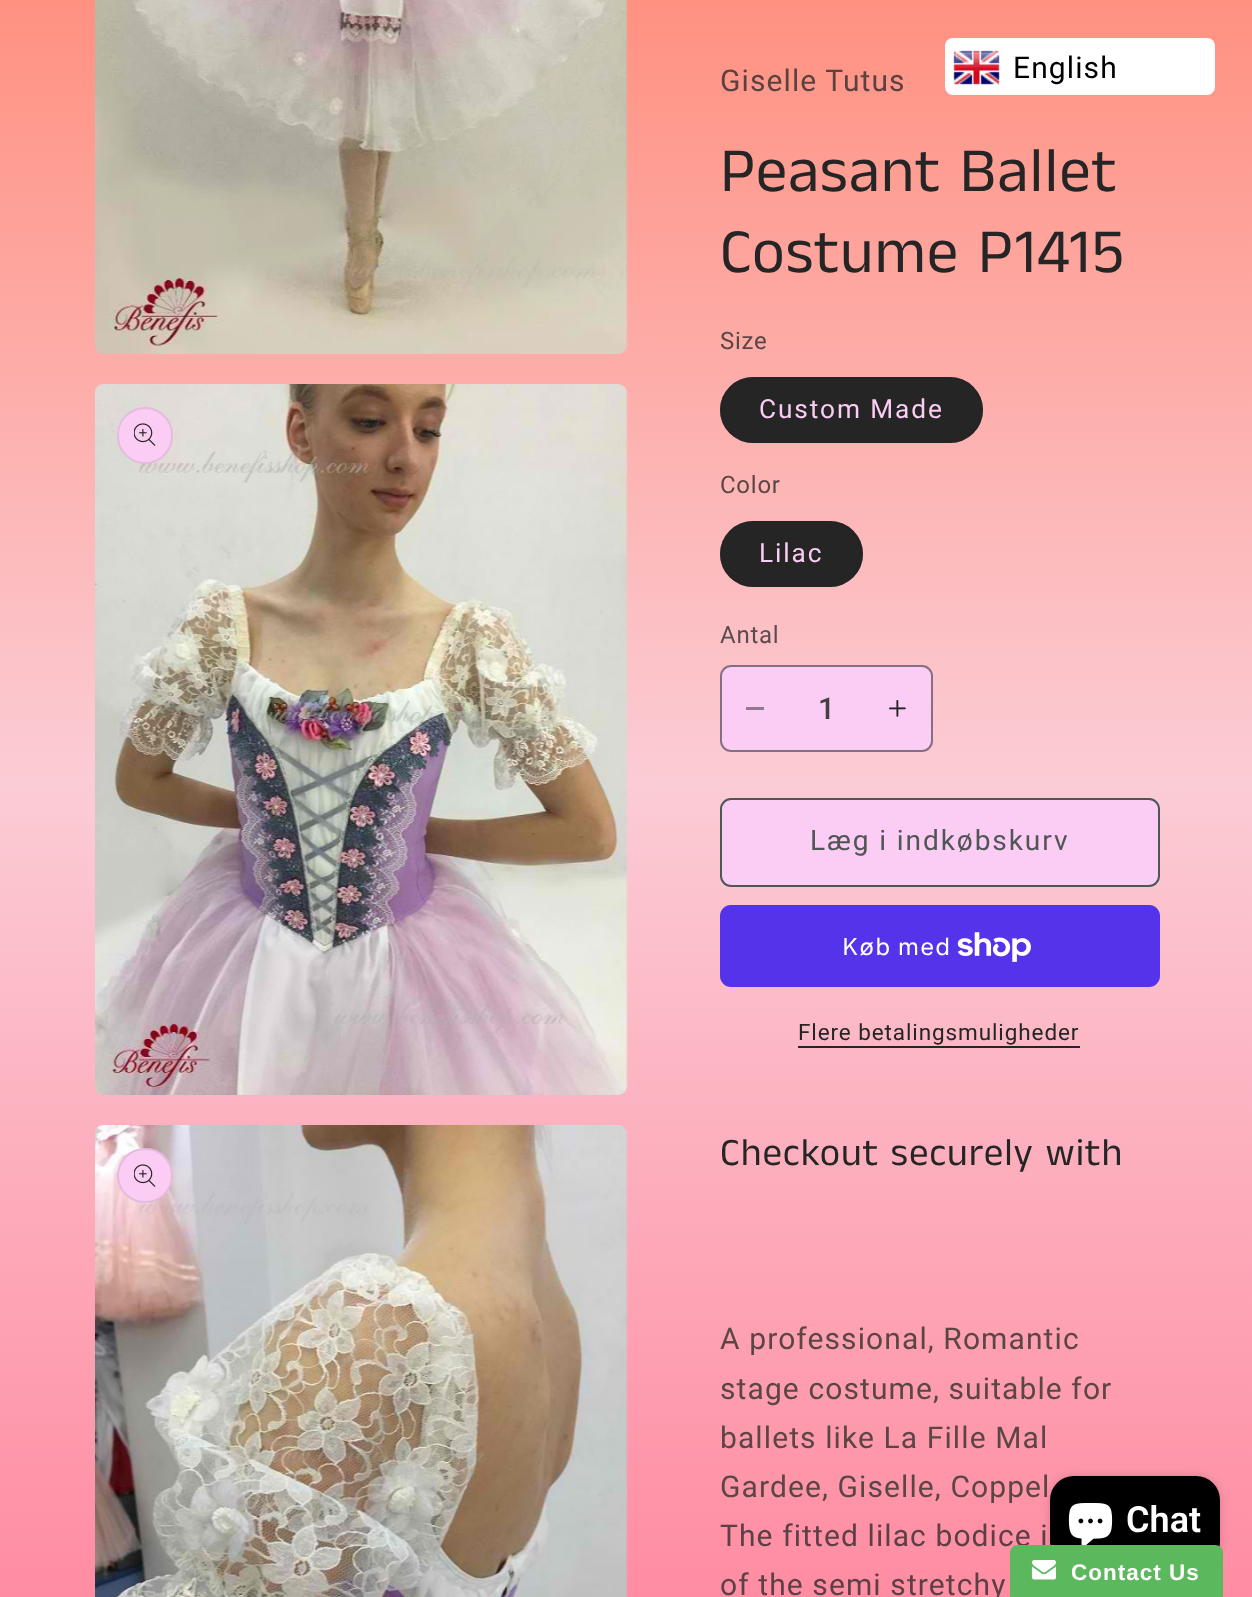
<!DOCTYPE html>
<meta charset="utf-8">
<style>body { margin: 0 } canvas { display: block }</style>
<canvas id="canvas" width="1252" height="1597"></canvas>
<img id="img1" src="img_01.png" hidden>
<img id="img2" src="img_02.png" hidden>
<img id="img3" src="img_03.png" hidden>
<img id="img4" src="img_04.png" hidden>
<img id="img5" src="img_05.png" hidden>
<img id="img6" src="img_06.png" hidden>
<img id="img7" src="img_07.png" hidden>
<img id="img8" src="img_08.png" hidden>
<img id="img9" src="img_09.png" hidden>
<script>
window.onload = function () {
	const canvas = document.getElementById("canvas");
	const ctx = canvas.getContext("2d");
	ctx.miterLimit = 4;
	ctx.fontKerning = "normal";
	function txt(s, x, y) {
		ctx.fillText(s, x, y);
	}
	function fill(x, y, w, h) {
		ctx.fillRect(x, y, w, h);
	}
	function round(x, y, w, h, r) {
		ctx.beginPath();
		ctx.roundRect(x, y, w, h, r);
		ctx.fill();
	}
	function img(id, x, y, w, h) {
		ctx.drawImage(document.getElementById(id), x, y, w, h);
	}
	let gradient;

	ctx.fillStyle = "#FFFFFF";
	fill(0, 0, 1252, 1597);
	gradient = ctx.createLinearGradient(626, 0, 626, 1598);
	gradient.addColorStop(0, "#FF9181");
	gradient.addColorStop(0.49, "#FBCCD5");
	gradient.addColorStop(1, "#FF8CA2");
	ctx.fillStyle = gradient;
	fill(0, 0, 1252, 1597);
	ctx.fillStyle = "#FFFFFF";
	round(945, 38, 270, 57, 8);
	img("img1", 953, 50, 47, 35);
	img("img2", 95, 0, 533, 354);
	img("img3", 95, 384, 533, 711);
	ctx.fillStyle = "#FBCCF4";
	round(117, 407, 56, 57, 28);
	ctx.beginPath();
	ctx.roundRect(118, 408, 54, 55, 27);
	ctx.strokeStyle = "rgba(37, 37, 37, 0.1)";
	ctx.lineWidth = 2;
	ctx.stroke();
	img("img4", 134, 423, 22, 23);
	img("img5", 95, 1125, 533, 472);
	round(117, 1148, 56, 55, 27.5);
	ctx.beginPath();
	ctx.roundRect(118, 1149, 54, 53, 26.5);
	ctx.stroke();
	img("img4", 134, 1164, 22, 23);
	ctx.fillStyle = "#252525";
	round(720, 377, 263, 66, 33);
	ctx.beginPath();
	ctx.roundRect(721, 378, 261, 64, 32);
	ctx.strokeStyle = "rgba(37, 37, 37, 0.55)";
	ctx.stroke();
	round(720, 521, 143, 66, 33);
	ctx.beginPath();
	ctx.roundRect(721, 522, 141, 64, 32);
	ctx.stroke();
	ctx.fillStyle = "#FBCCF4";
	round(720, 665, 213, 87, 11);
	ctx.fillStyle = "#90798D";
	fill(746, 707, 18, 3);
	img("img6", 889, 700, 17, 17);
	ctx.beginPath();
	ctx.roundRect(721, 666, 211, 85, 10);
	ctx.stroke();
	ctx.fillStyle = "#FBCCF4";
	round(720, 798, 440, 89, 11);
	ctx.beginPath();
	ctx.roundRect(721, 799, 438, 87, 10);
	ctx.strokeStyle = "#FBCCF4";
	ctx.stroke();
	ctx.beginPath();
	ctx.roundRect(721, 799, 438, 87, 10);
	ctx.strokeStyle = "#505655";
	ctx.stroke();
	ctx.fillStyle = "#5433EB";
	round(720, 905, 440, 82, 11);
	img("img7", 957, 932, 74, 30);
	ctx.fillStyle = "#252525";
	fill(798, 1046, 282, 2);
	ctx.fillStyle = "rgba(0, 0, 0, 0.15)";
	ctx.filter = "blur(4px)";
	ctx.beginPath();
	ctx.roundRect(1050, 1476, 170, 90, 24);
	ctx.fill();
	ctx.filter = "none";
	ctx.fillStyle = "#000000";
	round(1050, 1476, 170, 90, 24);
	img("img8", 1068, 1503, 45, 42);
	ctx.letterSpacing = "1.1px";
	ctx.font = "30px Roboto";
	txt("English", 1013, 78);
	ctx.fillStyle = "#5C423E";
	txt("Giselle Tutus", 720, 91);
	ctx.letterSpacing = "0.95px";
	ctx.font = "63px Anek Tamil";
	ctx.fillStyle = "#252525";
	txt("Peasant Ballet", 720, 191);
	txt("Costume P1415", 720, 272);
	ctx.letterSpacing = "0.75px";
	ctx.font = "24px Roboto";
	ctx.fillStyle = "#5B4645";
	txt("Size", 720, 349);
	ctx.letterSpacing = "1.9px";
	ctx.font = "26.25px Roboto";
	ctx.fillStyle = "#FBCCF4";
	txt("Custom Made", 759, 418);
	ctx.letterSpacing = "0.75px";
	ctx.font = "24px Roboto";
	ctx.fillStyle = "#5B4645";
	txt("Color", 720, 493);
	ctx.letterSpacing = "1.9px";
	ctx.font = "26.25px Roboto";
	ctx.fillStyle = "#FBCCF4";
	txt("Lilac", 759, 562);
	ctx.letterSpacing = "0.75px";
	ctx.font = "24px Roboto";
	ctx.fillStyle = "#5B4C4D";
	txt("Antal", 720, 643);
	ctx.letterSpacing = "0px";
	ctx.font = "500 30px Roboto";
	ctx.fillStyle = "#453E44";
	txt("1", 818, 719);
	ctx.letterSpacing = "1.9px";
	ctx.font = "28.1px Roboto";
	ctx.fillStyle = "#505655";
	txt("Læg i indkøbskurv", 810, 850);
	ctx.letterSpacing = "1.1px";
	ctx.font = "24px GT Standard";
	ctx.fillStyle = "#FFFFFF";
	txt("Køb med", 842, 955);
	ctx.letterSpacing = "0.9px";
	ctx.font = "22.5px Roboto";
	ctx.fillStyle = "#252525";
	txt("Flere betalingsmuligheder", 798, 1040);
	ctx.letterSpacing = "0.95px";
	ctx.font = "39px Anek Tamil";
	txt("Checkout securely with", 720, 1165);
	ctx.letterSpacing = "1.1px";
	ctx.font = "30px Roboto";
	ctx.fillStyle = "#5B4645";
	txt("A professional, Romantic", 720, 1349);
	txt("stage costume, suitable for", 720, 1399);
	txt("ballets like La Fille Mal", 720, 1448);
	txt("Gardee, Giselle, Coppel", 720, 1497);
	ctx.fillStyle = "#5C4045";
	txt("The fitted lilac bodice i", 720, 1546);
	txt("of the semi stretchy", 720, 1595);
	ctx.letterSpacing = "0px";
	ctx.font = "600 36px Roboto";
	ctx.fillStyle = "#FFFFFF";
	txt("Chat", 1126, 1532);
	ctx.fillStyle = "#5CB85C";
	ctx.beginPath();
	ctx.moveTo(1018, 1545);
	ctx.lineTo(1215, 1545);
	ctx.bezierCurveTo(1219.5, 1545, 1223, 1548.5, 1223, 1553);
	ctx.lineTo(1223, 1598);
	ctx.lineTo(1010, 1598);
	ctx.lineTo(1010, 1553);
	ctx.bezierCurveTo(1010, 1548.5, 1013.5, 1545, 1018, 1545);
	ctx.closePath();
	ctx.fill();
	img("img9", 1031, 1560, 25, 20);
	ctx.letterSpacing = "1px";
	ctx.font = "bold 22.5px Liberation Sans";
	ctx.fillStyle = "#FFFFFF";
	txt("Contact Us", 1071, 1580);
};
</script>
